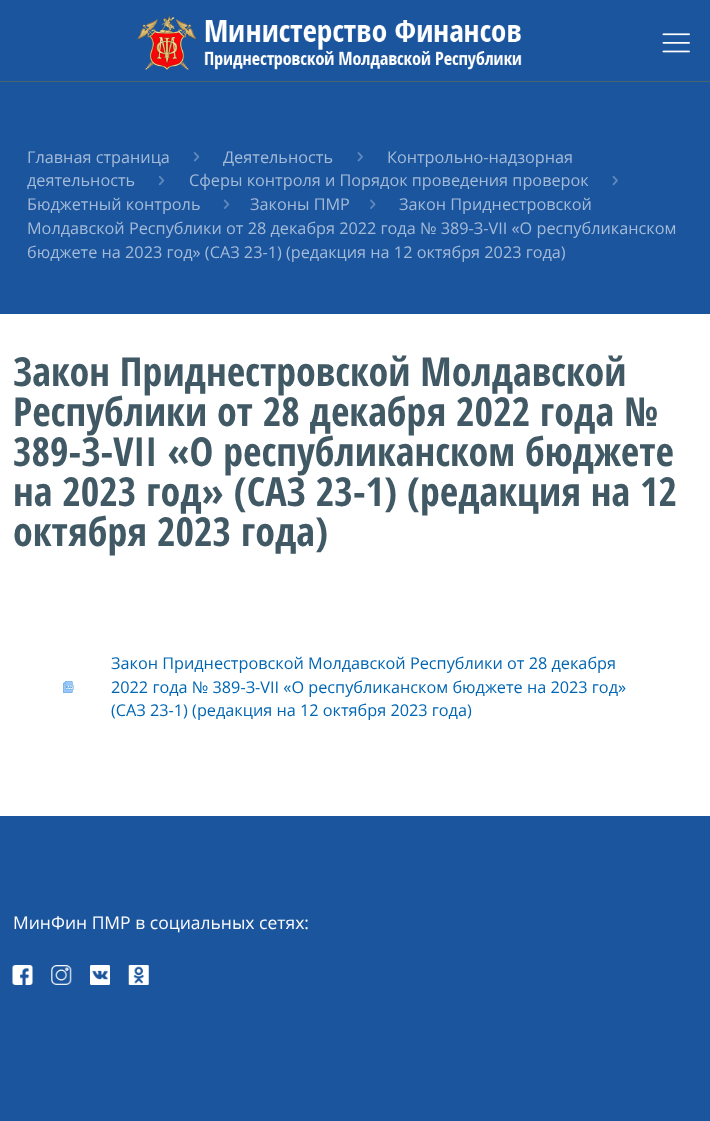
<!DOCTYPE html>
<meta charset="utf-8">
<style>body { margin: 0 } canvas { display: block }</style>
<canvas id="canvas" width="710" height="1121"></canvas>
<img id="img1" src="img_01.png" hidden>
<img id="img2" src="img_02.png" hidden>
<img id="img3" src="img_03.png" hidden>
<img id="img4" src="img_04.png" hidden>
<img id="img5" src="img_05.png" hidden>
<img id="img6" src="img_06.png" hidden>
<img id="img7" src="img_07.png" hidden>
<img id="img8" src="img_08.png" hidden>
<img id="img9" src="img_09.png" hidden>
<img id="img10" src="img_10.png" hidden>
<img id="img11" src="img_11.png" hidden>
<img id="img12" src="img_12.png" hidden>
<img id="img13" src="img_13.png" hidden>
<script>
window.onload = function () {
	const canvas = document.getElementById("canvas");
	const ctx = canvas.getContext("2d");
	ctx.miterLimit = 4;
	ctx.fontKerning = "normal";
	function txt(s, x, y) {
		ctx.fillText(s, x, y);
	}
	function fill(x, y, w, h) {
		ctx.fillRect(x, y, w, h);
	}
	function img(id, x, y, w, h) {
		ctx.drawImage(document.getElementById(id), x, y, w, h);
	}

	ctx.fillStyle = "#FFFFFF";
	fill(0, 0, 710, 1121);
	ctx.fillStyle = "#1B559E";
	fill(0, 0, 710, 314);
	ctx.fillStyle = "#47646F";
	fill(0, 81, 710, 1);
	img("img1", 137, 14, 385, 56);
	img("img2", 662, 33, 28, 20);
	img("img3", 357, 152, 6, 10);
	img("img4", 158, 175, 7, 11);
	img("img5", 612, 175, 6, 11);
	img("img6", 223, 199, 7, 10);
	img("img7", 370, 199, 6, 10);
	img("img8", 193, 152, 7, 10);
	img("img9", 63, 681, 11, 12);
	ctx.fillStyle = "#1B559E";
	fill(0, 816, 710, 305);
	img("img10", 12, 965, 21, 20);
	img("img11", 51, 965, 21, 20);
	img("img12", 90, 965, 20, 20);
	img("img13", 128, 965, 21, 20);
	ctx.font = "16.25px Open Sans";
	ctx.fillStyle = "#A4BBD8";
	txt("Контрольно-надзорная", 387, 163);
	txt("деятельность", 27, 186);
	txt("Сферы контроля и Порядок проведения проверок", 189, 186);
	txt("Бюджетный контроль", 27, 210);
	txt("Законы ПМР", 250, 210);
	txt("Закон Приднестровской", 399, 210);
	txt("Молдавской Республики от 28 декабря 2022 года № 389-З-VII «О республиканском", 27, 234);
	txt("бюджете на 2023 год» (САЗ 23-1) (редакция на 12 октября 2023 года)", 27, 258);
	txt("Деятельность", 223, 163);
	txt("Главная страница", 27, 163);
	ctx.font = "bold 40px Open Sans Condensed";
	ctx.fillStyle = "#405965";
	txt("Закон Приднестровской Молдавской", 13, 386);
	txt("Республики от 28 декабря 2022 года №", 13, 426);
	txt("389-З-VII «О республиканском бюджете", 13, 466);
	txt("на 2023 год» (САЗ 23-1) (редакция на 12", 13, 506);
	txt("октября 2023 года)", 13, 546);
	ctx.font = "16.25px Open Sans";
	ctx.fillStyle = "#0066B3";
	txt("Закон Приднестровской Молдавской Республики от 28 декабря", 111, 669);
	txt("2022 года № 389-З-VII «О республиканском бюджете на 2023 год»", 111, 693);
	txt("(САЗ 23-1) (редакция на 12 октября 2023 года)", 111, 716);
	ctx.font = "17.5px Open Sans";
	ctx.fillStyle = "#FCFCFC";
	txt("МинФин ПМР в социальных сетях:", 13, 929);
};
</script>
